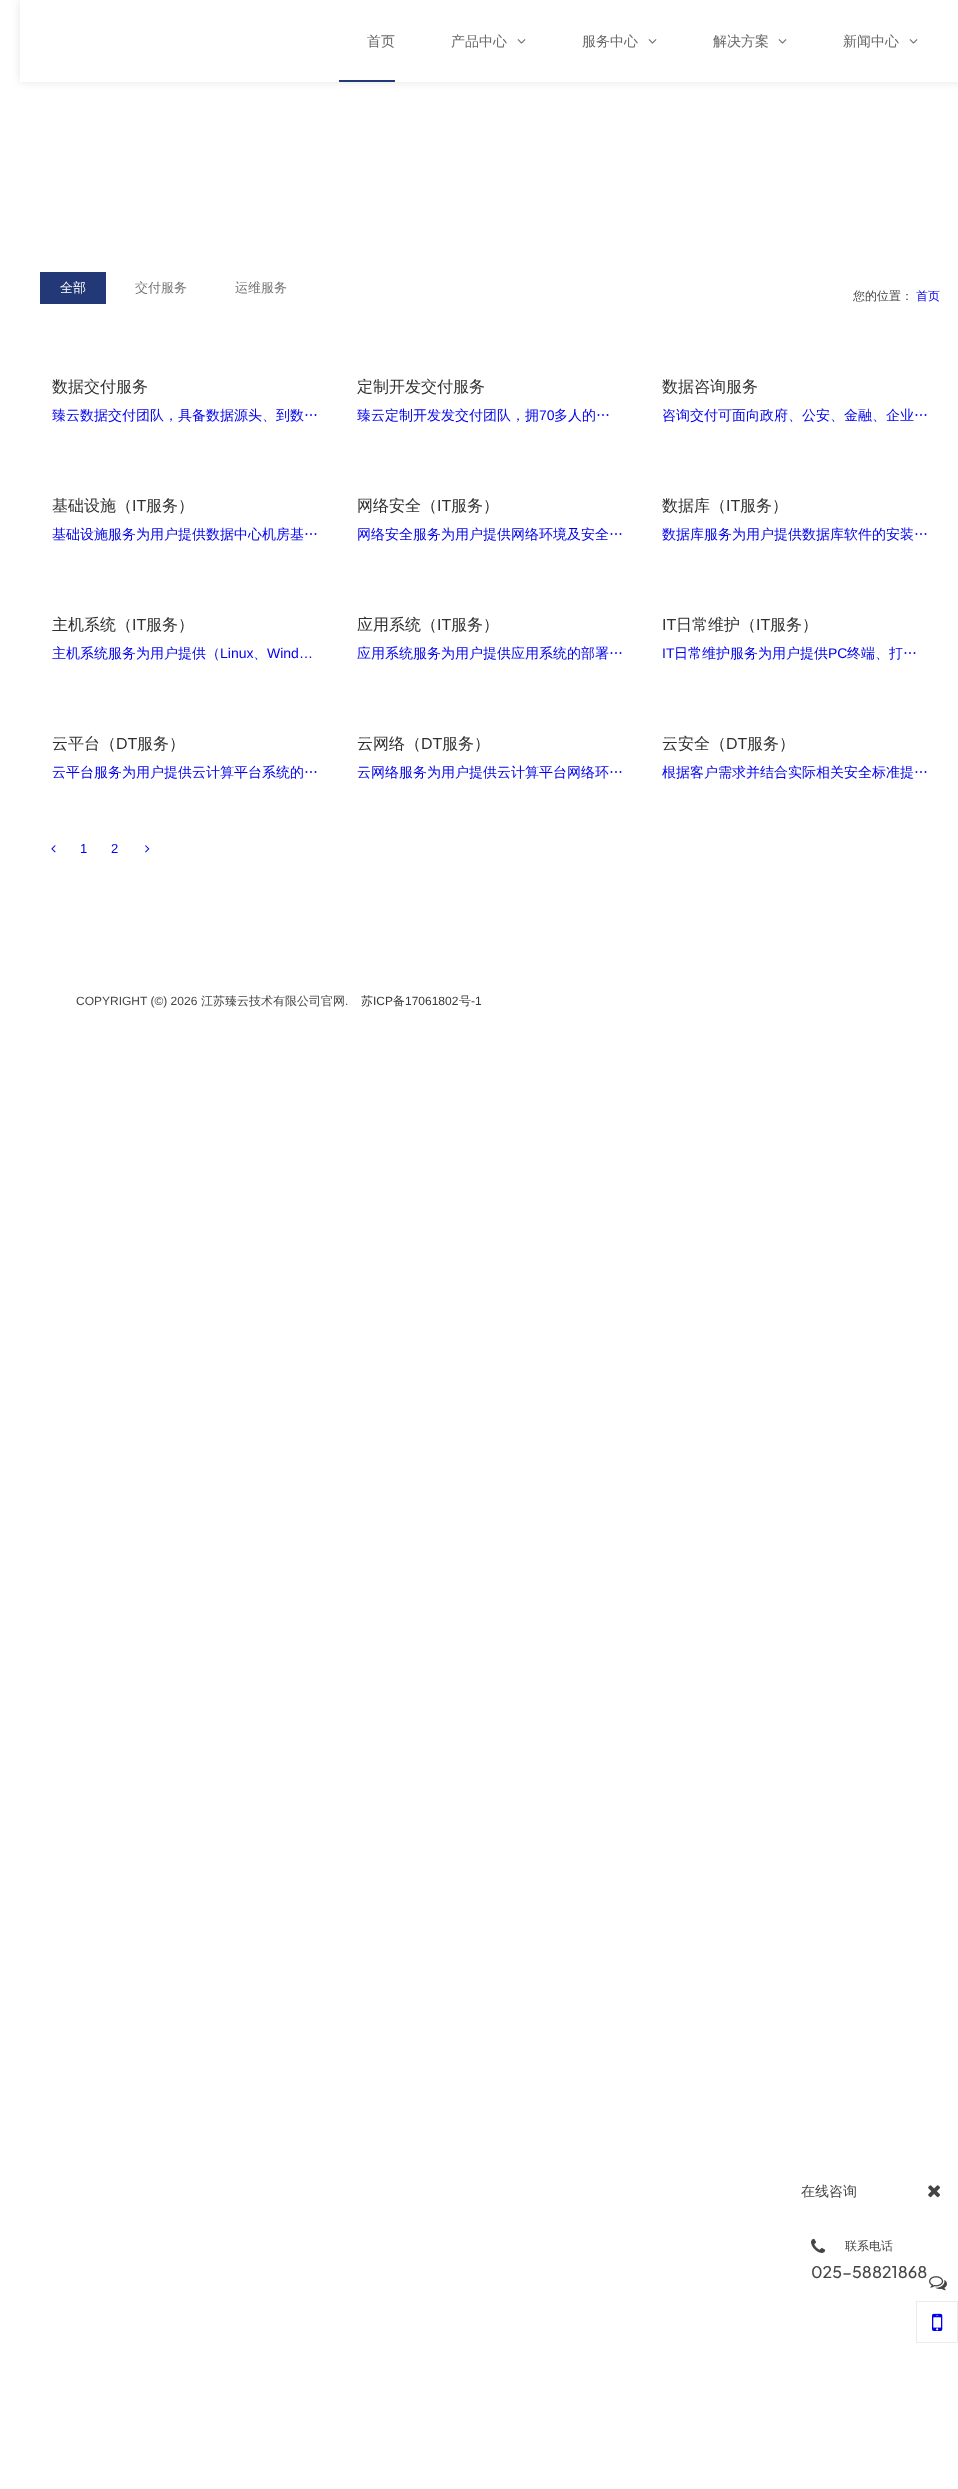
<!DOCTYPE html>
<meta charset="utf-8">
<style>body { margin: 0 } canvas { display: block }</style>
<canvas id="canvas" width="958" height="2489"></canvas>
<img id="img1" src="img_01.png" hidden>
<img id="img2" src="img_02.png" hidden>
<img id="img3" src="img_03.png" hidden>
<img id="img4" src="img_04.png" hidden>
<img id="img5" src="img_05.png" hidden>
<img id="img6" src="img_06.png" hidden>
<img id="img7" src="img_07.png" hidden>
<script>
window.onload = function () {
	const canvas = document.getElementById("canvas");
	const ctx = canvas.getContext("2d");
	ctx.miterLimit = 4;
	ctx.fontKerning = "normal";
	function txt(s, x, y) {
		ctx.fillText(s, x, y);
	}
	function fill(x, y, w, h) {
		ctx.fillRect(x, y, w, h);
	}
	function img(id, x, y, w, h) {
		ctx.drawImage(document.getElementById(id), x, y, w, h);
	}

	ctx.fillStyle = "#FFFFFF";
	fill(0, 0, 958, 2489);
	ctx.save();
	ctx.beginPath();
	ctx.moveTo(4, 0);
	ctx.lineTo(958, 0);
	ctx.lineTo(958, 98);
	ctx.lineTo(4, 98);
	ctx.closePath();
	ctx.moveTo(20, 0);
	ctx.lineTo(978, 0);
	ctx.lineTo(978, 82);
	ctx.lineTo(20, 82);
	ctx.closePath();
	ctx.clip("evenodd");
	ctx.fillStyle = "rgba(0, 0, 0, 0.1)";
	ctx.filter = "blur(5px)";
	ctx.beginPath();
	ctx.rect(20, 0, 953, 82);
	ctx.fill();
	ctx.filter = "none";
	ctx.restore();
	img("img1", 517, 39, 9, 5);
	img("img1", 648, 39, 9, 5);
	img("img1", 778, 39, 9, 5);
	img("img1", 909, 39, 9, 5);
	ctx.fillStyle = "#233876";
	fill(339, 80, 56, 2);
	fill(40, 272, 66, 32);
	img("img2", 51, 845, 5, 8);
	img("img3", 145, 845, 5, 8);
	img("img4", 928, 2185, 12, 13);
	img("img5", 811, 2238, 15, 15);
	img("img6", 929, 2276, 18, 15);
	ctx.strokeStyle = "#EBEBEB";
	ctx.strokeRect(916.5, 2301.5, 41, 41);
	img("img7", 932, 2313, 11, 18);
	ctx.font = "500 14px WenQuanYi Zen Hei";
	ctx.fillStyle = "#666666";
	txt("首页", 367, 46);
	txt("产品中心", 451, 46);
	txt("服务中心", 582, 46);
	txt("解决方案", 713, 46);
	txt("新闻中心", 843, 46);
	ctx.font = "500 13px WenQuanYi Zen Hei";
	ctx.fillStyle = "#FFFFFF";
	txt("全部", 60, 292);
	ctx.fillStyle = "#737373";
	txt("交付服务", 135, 292);
	txt("运维服务", 235, 292);
	ctx.font = "500 16px WenQuanYi Zen Hei";
	ctx.fillStyle = "#303030";
	txt("数据交付服务", 52, 392);
	ctx.font = "500 14px WenQuanYi Zen Hei";
	ctx.fillStyle = "#0000EE";
	txt("臻云数据交付团队，具备数据源头、到数…", 52, 420);
	ctx.font = "500 16px WenQuanYi Zen Hei";
	ctx.fillStyle = "#303030";
	txt("定制开发交付服务", 357, 392);
	ctx.font = "500 14px WenQuanYi Zen Hei";
	ctx.fillStyle = "#0000EE";
	txt("臻云定制开发发交付团队，拥", 357, 420);
	ctx.font = "14px Liberation Sans";
	txt("70", 539, 420);
	ctx.font = "500 14px WenQuanYi Zen Hei";
	txt("多人的…", 554, 420);
	ctx.font = "500 16px WenQuanYi Zen Hei";
	ctx.fillStyle = "#303030";
	txt("数据咨询服务", 662, 392);
	ctx.font = "500 14px WenQuanYi Zen Hei";
	ctx.fillStyle = "#0000EE";
	txt("咨询交付可面向政府、公安、金融、企业…", 662, 420);
	ctx.font = "500 16px WenQuanYi Zen Hei";
	ctx.fillStyle = "#303030";
	txt("基础设施（", 52, 511);
	ctx.font = "16px Liberation Sans";
	txt("IT", 132, 511);
	ctx.font = "500 16px WenQuanYi Zen Hei";
	txt("服务）", 146, 511);
	ctx.font = "500 14px WenQuanYi Zen Hei";
	ctx.fillStyle = "#0000EE";
	txt("基础设施服务为用户提供数据中心机房基…", 52, 539);
	ctx.font = "500 16px WenQuanYi Zen Hei";
	ctx.fillStyle = "#303030";
	txt("网络安全（", 357, 511);
	ctx.font = "16px Liberation Sans";
	txt("IT", 437, 511);
	ctx.font = "500 16px WenQuanYi Zen Hei";
	txt("服务）", 451, 511);
	ctx.font = "500 14px WenQuanYi Zen Hei";
	ctx.fillStyle = "#0000EE";
	txt("网络安全服务为用户提供网络环境及安全…", 357, 539);
	ctx.font = "500 16px WenQuanYi Zen Hei";
	ctx.fillStyle = "#303030";
	txt("数据库（", 662, 511);
	ctx.font = "16px Liberation Sans";
	txt("IT", 726, 511);
	ctx.font = "500 16px WenQuanYi Zen Hei";
	txt("服务）", 740, 511);
	ctx.font = "500 14px WenQuanYi Zen Hei";
	ctx.fillStyle = "#0000EE";
	txt("数据库服务为用户提供数据库软件的安装…", 662, 539);
	ctx.font = "500 16px WenQuanYi Zen Hei";
	ctx.fillStyle = "#303030";
	txt("主机系统（", 52, 630);
	ctx.font = "16px Liberation Sans";
	txt("IT", 132, 630);
	ctx.font = "500 16px WenQuanYi Zen Hei";
	txt("服务）", 146, 630);
	ctx.font = "500 14px WenQuanYi Zen Hei";
	ctx.fillStyle = "#0000EE";
	txt("主机系统服务为用户提供（", 52, 658);
	ctx.font = "14px Liberation Sans";
	txt("Linux", 220, 658);
	ctx.font = "500 14px WenQuanYi Zen Hei";
	txt("、", 253, 658);
	ctx.font = "14px Liberation Sans";
	txt("Wind…", 267, 658);
	ctx.font = "500 16px WenQuanYi Zen Hei";
	ctx.fillStyle = "#303030";
	txt("应用系统（", 357, 630);
	ctx.font = "16px Liberation Sans";
	txt("IT", 437, 630);
	ctx.font = "500 16px WenQuanYi Zen Hei";
	txt("服务）", 451, 630);
	ctx.font = "500 14px WenQuanYi Zen Hei";
	ctx.fillStyle = "#0000EE";
	txt("应用系统服务为用户提供应用系统的部署…", 357, 658);
	ctx.font = "16px Liberation Sans";
	ctx.fillStyle = "#303030";
	txt("IT", 662, 630);
	ctx.font = "500 16px WenQuanYi Zen Hei";
	txt("日常维护（", 676, 630);
	ctx.font = "16px Liberation Sans";
	txt("IT", 756, 630);
	ctx.font = "500 16px WenQuanYi Zen Hei";
	txt("服务）", 770, 630);
	ctx.font = "14px Liberation Sans";
	ctx.fillStyle = "#0000EE";
	txt("IT", 662, 658);
	ctx.font = "500 14px WenQuanYi Zen Hei";
	txt("日常维护服务为用户提供", 674, 658);
	ctx.font = "14px Liberation Sans";
	txt("PC", 828, 658);
	ctx.font = "500 14px WenQuanYi Zen Hei";
	txt("终端、打…", 847, 658);
	ctx.font = "500 16px WenQuanYi Zen Hei";
	ctx.fillStyle = "#303030";
	txt("云平台（", 52, 749);
	ctx.font = "16px Liberation Sans";
	txt("DT", 116, 749);
	ctx.font = "500 16px WenQuanYi Zen Hei";
	txt("服务）", 137, 749);
	ctx.font = "500 14px WenQuanYi Zen Hei";
	ctx.fillStyle = "#0000EE";
	txt("云平台服务为用户提供云计算平台系统的…", 52, 777);
	ctx.font = "500 16px WenQuanYi Zen Hei";
	ctx.fillStyle = "#303030";
	txt("云网络（", 357, 749);
	ctx.font = "16px Liberation Sans";
	txt("DT", 421, 749);
	ctx.font = "500 16px WenQuanYi Zen Hei";
	txt("服务）", 442, 749);
	ctx.font = "500 14px WenQuanYi Zen Hei";
	ctx.fillStyle = "#0000EE";
	txt("云网络服务为用户提供云计算平台网络环…", 357, 777);
	ctx.font = "500 16px WenQuanYi Zen Hei";
	ctx.fillStyle = "#303030";
	txt("云安全（", 662, 749);
	ctx.font = "16px Liberation Sans";
	txt("DT", 726, 749);
	ctx.font = "500 16px WenQuanYi Zen Hei";
	txt("服务）", 747, 749);
	ctx.font = "500 14px WenQuanYi Zen Hei";
	ctx.fillStyle = "#0000EE";
	txt("根据客户需求并结合实际相关安全标准提…", 662, 777);
	ctx.font = "13px Liberation Sans";
	txt("1", 80, 853);
	txt("2", 111, 853);
	ctx.font = "500 12px WenQuanYi Zen Hei";
	ctx.fillStyle = "#444444";
	txt("您的位置：", 853, 300);
	ctx.fillStyle = "#0000EE";
	txt("首页", 916, 300);
	ctx.font = "12px Liberation Sans";
	ctx.fillStyle = "#444444";
	txt("COPYRIGHT (©) 2026", 76, 1005);
	ctx.font = "500 12px WenQuanYi Zen Hei";
	txt("江苏臻云技术有限公司官网", 201, 1005);
	ctx.font = "12px Liberation Sans";
	txt(".", 345, 1005);
	ctx.font = "500 12px WenQuanYi Zen Hei";
	ctx.fillStyle = "#363636";
	txt("苏", 361, 1005);
	ctx.font = "12px Liberation Sans";
	txt("ICP", 373, 1005);
	ctx.font = "500 12px WenQuanYi Zen Hei";
	txt("备", 393, 1005);
	ctx.font = "12px Liberation Sans";
	txt("17061802", 405, 1005);
	ctx.font = "500 12px WenQuanYi Zen Hei";
	txt("号", 459, 1005);
	ctx.font = "12px Liberation Sans";
	txt("-1", 471, 1005);
	ctx.font = "500 14px WenQuanYi Zen Hei";
	ctx.fillStyle = "#444444";
	txt("在线咨询", 801, 2196);
	ctx.font = "500 12px WenQuanYi Zen Hei";
	txt("联系电话", 845, 2250);
	ctx.font = "500 16px Plus Jakarta Sans";
	txt("025-58821868", 811, 2278);
};
</script>
